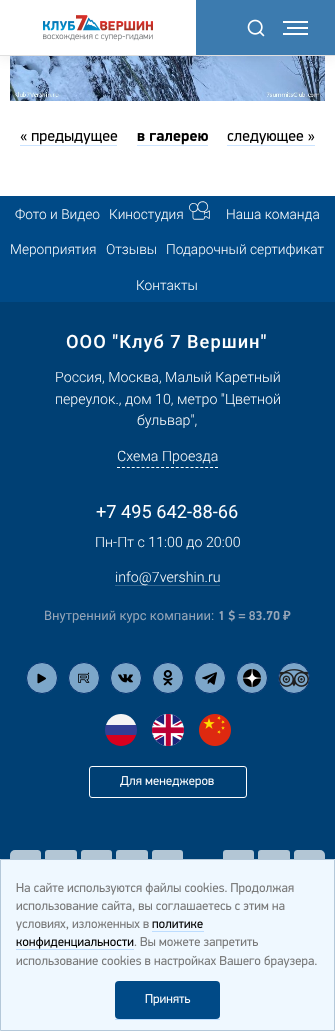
<!DOCTYPE html>
<meta charset="utf-8">
<style>body { margin: 0 } canvas { display: block }</style>
<canvas id="canvas" width="335" height="1031"></canvas>
<img id="img1" src="img_03.png" hidden>
<img id="img2" src="img_01.png" hidden>
<img id="img3" src="img_02.png" hidden>
<img id="img4" src="img_04.png" hidden>
<img id="img5" src="img_05.png" hidden>
<img id="img6" src="img_06.png" hidden>
<img id="img7" src="img_07.png" hidden>
<img id="img8" src="img_08.png" hidden>
<img id="img9" src="img_09.png" hidden>
<img id="img10" src="img_10.png" hidden>
<img id="img11" src="img_11.png" hidden>
<img id="img12" src="img_12.png" hidden>
<img id="img13" src="img_13.png" hidden>
<img id="img14" src="img_14.png" hidden>
<img id="img15" src="img_15.png" hidden>
<img id="img16" src="img_16.png" hidden>
<img id="img17" src="img_17.png" hidden>
<img id="img18" src="img_18.png" hidden>
<img id="img19" src="img_19.png" hidden>
<img id="img20" src="img_20.png" hidden>
<img id="img21" src="img_21.png" hidden>
<img id="img22" src="img_22.png" hidden>
<img id="img23" src="img_23.png" hidden>
<img id="img24" src="img_24.png" hidden>
<img id="img25" src="img_25.png" hidden>
<img id="img26" src="img_26.png" hidden>
<script>
window.onload = function () {
	const canvas = document.getElementById("canvas");
	const ctx = canvas.getContext("2d");
	ctx.miterLimit = 4;
	ctx.fontKerning = "normal";
	function txt(s, x, y) {
		ctx.fillText(s, x, y);
	}
	function fill(x, y, w, h) {
		ctx.fillRect(x, y, w, h);
	}
	function round(x, y, w, h, r) {
		ctx.beginPath();
		ctx.roundRect(x, y, w, h, r);
		ctx.fill();
	}
	function img(id, x, y, w, h) {
		ctx.drawImage(document.getElementById(id), x, y, w, h);
	}

	ctx.fillStyle = "#FFFFFF";
	fill(0, 0, 335, 1031);
	img("img1", 10, 56, 315, 45);
	ctx.fillStyle = "rgba(0, 0, 0, 0.07)";
	ctx.filter = "blur(6.5px)";
	ctx.beginPath();
	ctx.rect(0, 2, 335, 56);
	ctx.fill();
	ctx.filter = "none";
	ctx.fillStyle = "#3C7BAF";
	fill(196, 0, 139, 55);
	ctx.fillStyle = "#E0E0E0";
	fill(0, 55, 335, 1);
	ctx.fillStyle = "#FFFFFF";
	fill(0, 0, 196, 55);
	img("img2", 43, 15, 110, 26);
	img("img3", 247, 19, 18, 18);
	fill(287, 27, 21, 2);
	fill(283, 21, 25, 2);
	fill(283, 33, 25, 2);
	img("img4", 20, 133, 98, 12);
	img("img5", 137, 133, 71, 12);
	img("img6", 227, 133, 88, 12);
	ctx.fillStyle = "#CAE3FF";
	fill(20, 145, 97, 1);
	fill(137, 145, 71, 1);
	fill(227, 145, 88, 1);
	ctx.fillStyle = "#004074";
	fill(0, 302, 335, 557);
	ctx.fillStyle = "#004A87";
	fill(0, 196, 335, 106);
	img("img7", 189, 201, 21, 19);
	ctx.beginPath();
	ctx.moveTo(117, 467.5);
	ctx.lineTo(218, 467.5);
	ctx.strokeStyle = "#FFFFFF";
	ctx.setLineDash([3, 1.9]);
	ctx.stroke();
	ctx.fillStyle = "#336690";
	fill(115, 585, 105, 1);
	img("img8", 219, 609, 61, 13);
	ctx.fillStyle = "#7CA6C9";
	ctx.beginPath();
	ctx.arc(42, 678, 15.5, 0, Math.PI * 2);
	ctx.fill();
	ctx.strokeStyle = "#03326F";
	ctx.setLineDash([]);
	ctx.stroke();
	img("img9", 37, 673, 9, 11);
	ctx.beginPath();
	ctx.arc(84, 678, 15.5, 0, Math.PI * 2);
	ctx.fill();
	ctx.stroke();
	img("img10", 78, 672, 12, 11);
	ctx.beginPath();
	ctx.arc(126, 678, 15.5, 0, Math.PI * 2);
	ctx.fill();
	ctx.stroke();
	img("img11", 118, 674, 15, 9);
	ctx.beginPath();
	ctx.arc(168, 678, 15.5, 0, Math.PI * 2);
	ctx.fill();
	ctx.stroke();
	img("img12", 163, 670, 10, 16);
	ctx.beginPath();
	ctx.arc(210, 678, 15.5, 0, Math.PI * 2);
	ctx.fill();
	ctx.stroke();
	img("img13", 202, 672, 15, 13);
	ctx.beginPath();
	ctx.arc(252, 678, 15.5, 0, Math.PI * 2);
	ctx.fill();
	ctx.stroke();
	img("img14", 243, 669, 18, 18);
	ctx.beginPath();
	ctx.arc(294, 678, 15.5, 0, Math.PI * 2);
	ctx.fill();
	ctx.stroke();
	img("img15", 279, 669, 30, 18);
	ctx.fillStyle = "#F4F4F4";
	ctx.beginPath();
	ctx.moveTo(121, 714);
	ctx.bezierCurveTo(114, 714, 108, 718.5, 106, 725);
	ctx.lineTo(136, 725);
	ctx.bezierCurveTo(134, 718.5, 128, 714, 121, 714);
	ctx.closePath();
	ctx.fill();
	ctx.save();
	ctx.beginPath();
	ctx.roundRect(105, 714, 32, 32, 16);
	ctx.clip();
	ctx.fillStyle = "#323E95";
	fill(105, 725, 32, 10);
	ctx.restore();
	ctx.fillStyle = "#D8001E";
	ctx.beginPath();
	ctx.moveTo(136, 735);
	ctx.bezierCurveTo(131.5, 749.5, 110.5, 749.5, 106, 735);
	ctx.closePath();
	ctx.fill();
	img("img16", 152, 714, 32, 32);
	img("img17", 199, 714, 32, 32);
	ctx.beginPath();
	ctx.roundRect(89.5, 766.5, 157, 31, 2.5);
	ctx.strokeStyle = "#FFFFFF";
	ctx.stroke();
	img("img18", 120, 776, 94, 12);
	ctx.save();
	ctx.beginPath();
	ctx.roundRect(10, 850, 31, 50, 3);
	ctx.clip();
	ctx.fillStyle = "#B3C6D5";
	ctx.beginPath();
	ctx.roundRect(10, 850, 31, 50, [5, 3, 3, 5]);
	ctx.fill();
	ctx.restore();
	ctx.fillStyle = "#B3C6D5";
	round(45, 850, 32, 50, 3);
	round(81, 850, 31, 50, 3);
	round(116, 850, 32, 50, 3);
	round(152, 850, 31, 50, 3);
	round(223, 850, 31, 50, 3);
	round(258, 850, 32, 50, 3);
	ctx.save();
	ctx.beginPath();
	ctx.roundRect(294, 850, 31, 50, 3);
	ctx.clip();
	ctx.beginPath();
	ctx.roundRect(294, 850, 31, 50, [3, 5, 5, 3]);
	ctx.fill();
	ctx.restore();
	ctx.fillStyle = "#EFF8FF";
	ctx.beginPath();
	ctx.rect(0.5, 859.5, 334, 171);
	ctx.fill();
	ctx.strokeStyle = "#B4C8D9";
	ctx.stroke();
	img("img19", 16, 882, 278, 13);
	img("img20", 16, 900, 269, 12);
	img("img21", 16, 921, 133, 10);
	img("img22", 152, 921, 51, 8);
	ctx.fillStyle = "#BDDDFF";
	fill(152, 931, 52, 1);
	img("img23", 16, 937, 118, 12);
	img("img24", 134, 937, 124, 12);
	fill(16, 949, 118, 1);
	img("img25", 16, 955, 301, 13);
	fill(115, 1019, 105, 1);
	ctx.fillStyle = "#004A87";
	round(115, 981, 105, 38, 4);
	img("img26", 145, 994, 46, 12);
	ctx.font = "300 13.75px Roboto";
	ctx.fillStyle = "#FFFFFF";
	txt("Фото и Видео", 15, 219);
	txt("Киностудия", 109, 219);
	txt("Наша команда", 226, 219);
	txt("Мероприятия", 10, 254);
	txt("Отзывы", 106, 254);
	txt("Подарочный сертификат", 166, 254);
	txt("Контакты", 136, 290);
	ctx.letterSpacing = "1px";
	ctx.font = "500 18.25px Roboto";
	txt("ООО \"Клуб 7 Вершин\"", 66, 348);
	ctx.letterSpacing = "0px";
	ctx.font = "300 14.25px Roboto";
	txt("Россия, Москва, Малый Каретный", 55, 382);
	txt("переулок., дом 10, метро \"Цветной", 55, 404);
	txt("бульвар\",", 137, 425);
	txt("Схема Проезда", 117, 461);
	ctx.font = "18.25px Roboto";
	txt("+7 495 642-88-66", 96, 518);
	ctx.font = "300 14.25px Roboto";
	txt("Пн-Пт с 11:00 до 20:00", 95, 547);
	txt("info@7vershin.ru", 115, 582);
	ctx.font = "13px Roboto";
	ctx.fillStyle = "#96A6B8";
	txt("Внутренний курс компании:", 44, 620);
	ctx.font = "600 13px Noto Sans";
	txt("₽", 283, 620);
};
</script>
